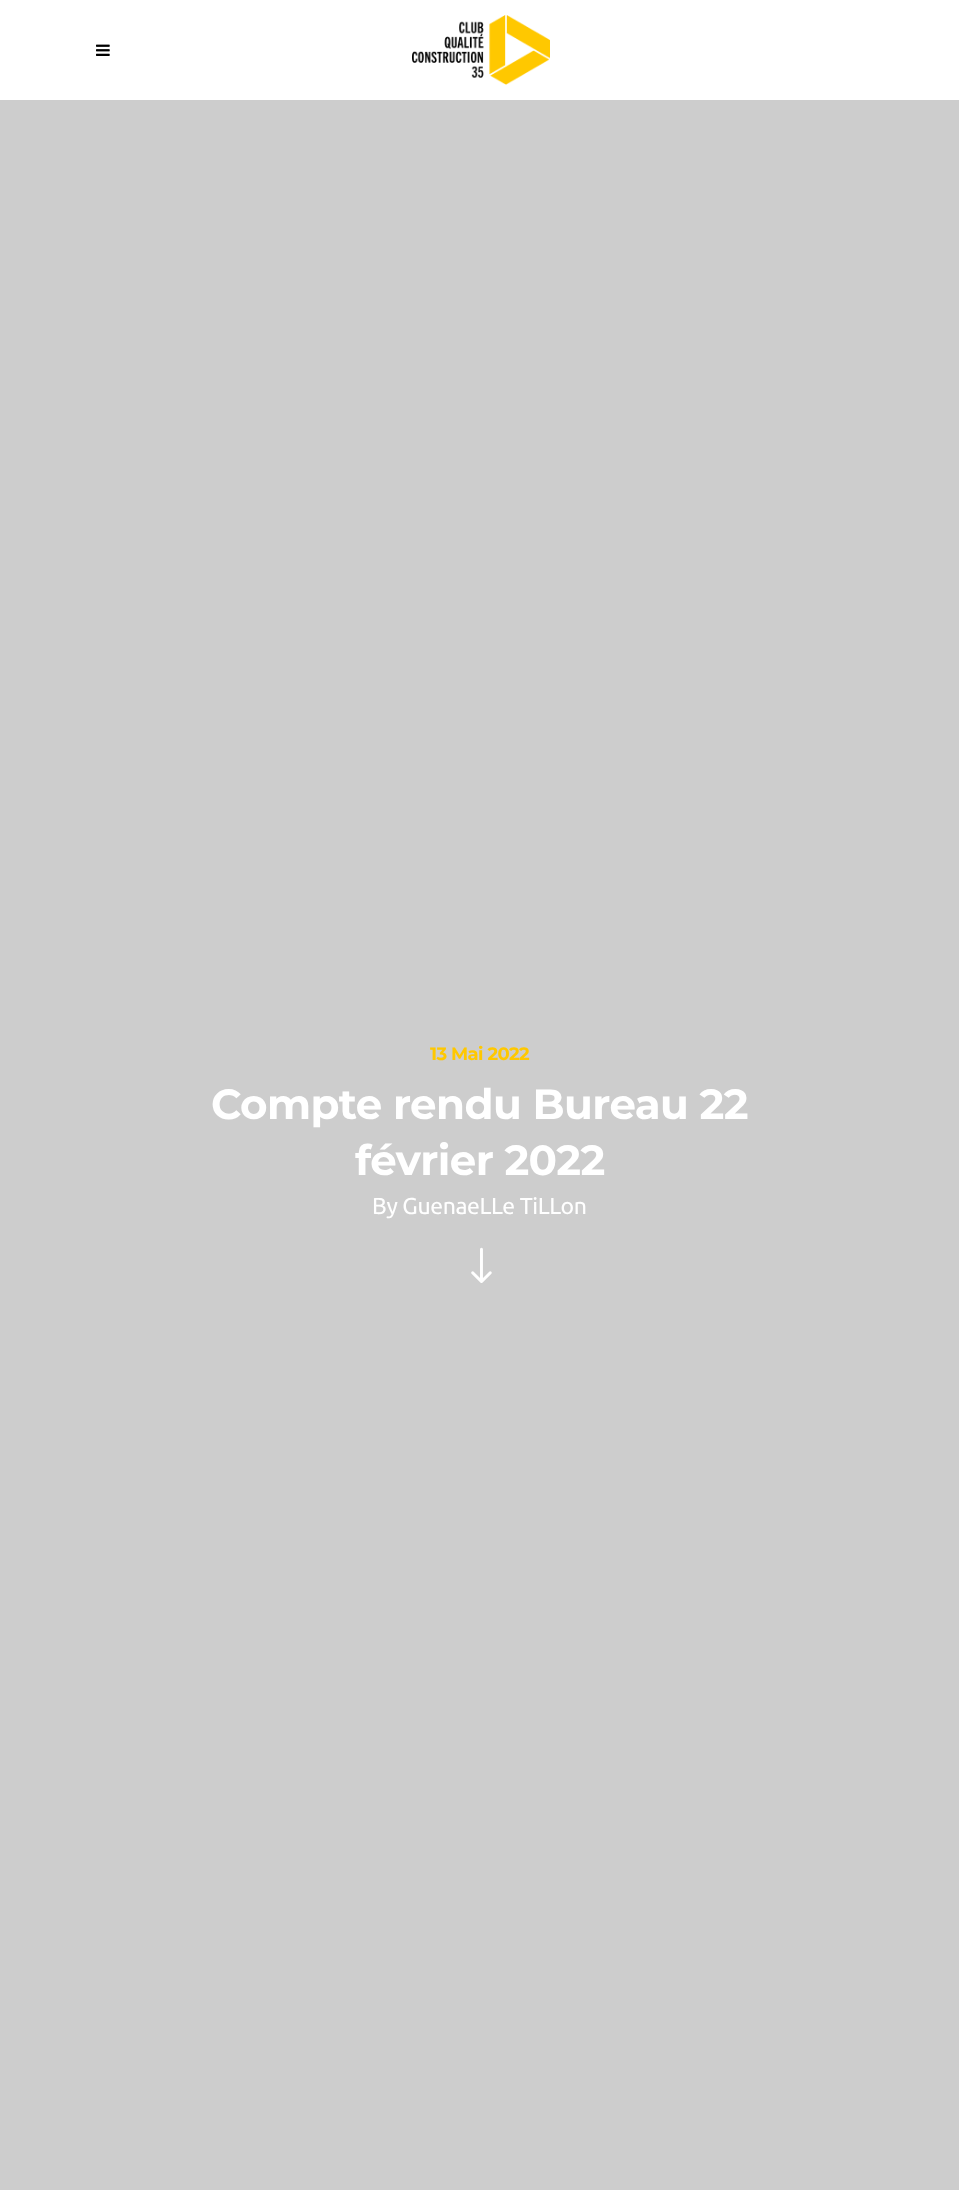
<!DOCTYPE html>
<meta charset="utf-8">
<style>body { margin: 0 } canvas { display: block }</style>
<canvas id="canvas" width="959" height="2190"></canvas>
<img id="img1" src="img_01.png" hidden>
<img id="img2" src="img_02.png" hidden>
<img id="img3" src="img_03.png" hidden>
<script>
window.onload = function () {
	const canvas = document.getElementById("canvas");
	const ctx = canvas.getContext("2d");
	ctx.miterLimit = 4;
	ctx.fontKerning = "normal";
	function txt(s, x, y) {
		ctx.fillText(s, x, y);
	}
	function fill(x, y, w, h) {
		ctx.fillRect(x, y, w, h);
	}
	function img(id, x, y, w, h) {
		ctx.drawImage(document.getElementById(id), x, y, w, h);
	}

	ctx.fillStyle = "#FFFFFF";
	fill(0, 0, 959, 2190);
	img("img1", 96, 44, 14, 12);
	img("img2", 412, 15, 138, 70);
	ctx.fillStyle = "#CDCDCD";
	fill(0, 100, 959, 2090);
	img("img3", 471, 1247, 21, 36);
	ctx.letterSpacing = "-0.6px";
	ctx.font = "bold 18px Montserrat";
	ctx.fillStyle = "#FFC800";
	txt("13 Mai 2022", 430, 1060);
	ctx.font = "bold 42px Montserrat";
	ctx.fillStyle = "#FFFFFF";
	txt("Compte rendu Bureau 22", 211, 1119);
	txt("février 2022", 355, 1175);
	ctx.letterSpacing = "-0.4px";
	ctx.font = "23px Ubuntu";
	txt("By GuenaeLLe TiLLon", 372, 1214);
};
</script>
